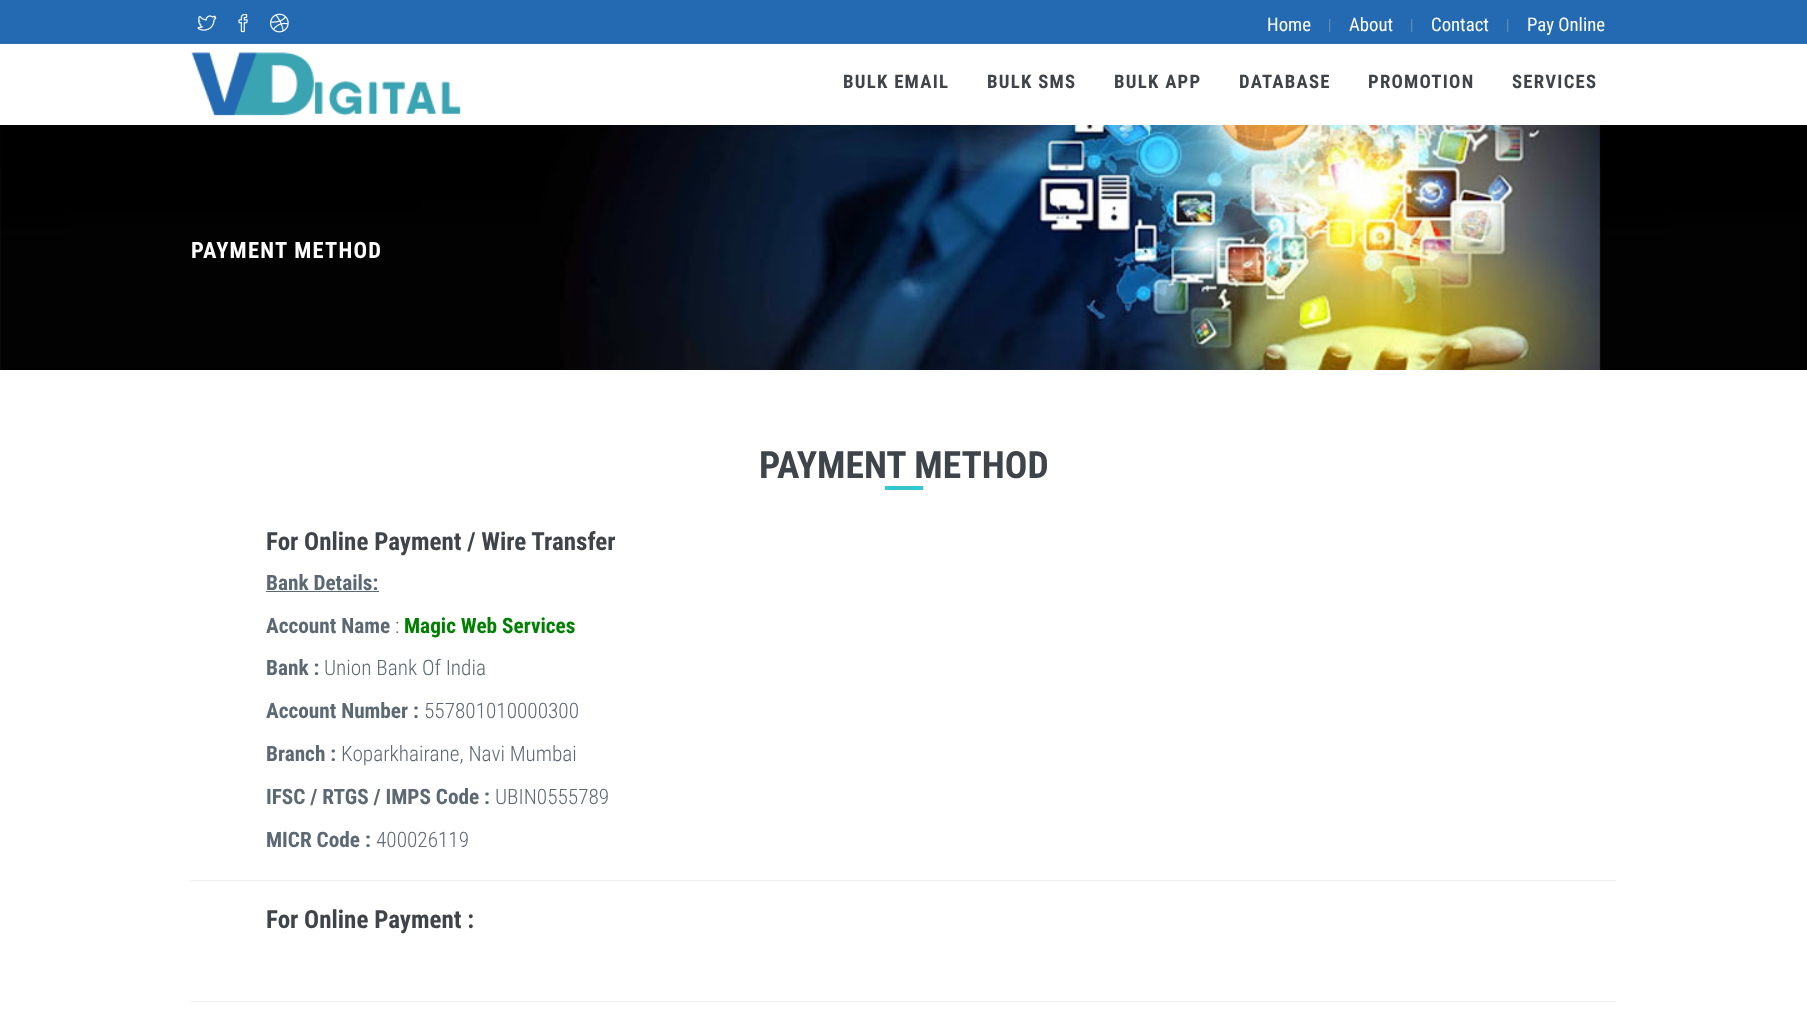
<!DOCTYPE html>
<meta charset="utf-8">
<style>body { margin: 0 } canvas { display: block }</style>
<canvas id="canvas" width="1807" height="1010"></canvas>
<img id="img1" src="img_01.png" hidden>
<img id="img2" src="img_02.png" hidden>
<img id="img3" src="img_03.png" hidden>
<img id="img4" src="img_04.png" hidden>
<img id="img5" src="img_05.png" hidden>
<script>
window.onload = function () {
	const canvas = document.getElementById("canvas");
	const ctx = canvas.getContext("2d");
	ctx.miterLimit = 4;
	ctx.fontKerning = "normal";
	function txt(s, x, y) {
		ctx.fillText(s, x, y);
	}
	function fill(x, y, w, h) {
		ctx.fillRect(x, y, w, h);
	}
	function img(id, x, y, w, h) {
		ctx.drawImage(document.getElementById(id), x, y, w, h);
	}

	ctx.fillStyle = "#FFFFFF";
	fill(0, 0, 1807, 1010);
	ctx.fillStyle = "#236AB3";
	fill(0, 0, 1807, 43);
	ctx.fillStyle = "#3271B2";
	fill(0, 43, 1807, 1);
	img("img1", 197, 15, 20, 16);
	img("img2", 238, 14, 10, 19);
	img("img3", 270, 13, 19, 20);
	img("img4", 191, 52, 270, 64);
	img("img5", 0, 125, 1807, 245);
	ctx.fillStyle = "#32C5D2";
	fill(885, 486, 38, 4);
	ctx.fillStyle = "#5C6873";
	fill(266, 591, 113, 1);
	ctx.fillStyle = "#EEEEEE";
	fill(191, 880, 1425, 1);
	fill(191, 1001, 1425, 1);
	ctx.font = "18.75px Roboto Condensed";
	ctx.fillStyle = "#FFFFFF";
	txt("Home", 1267, 31);
	ctx.font = "300 16px Roboto Condensed";
	ctx.fillStyle = "#8797AE";
	txt("|", 1328, 30);
	ctx.font = "18.75px Roboto Condensed";
	ctx.fillStyle = "#FFFFFF";
	txt("About", 1349, 31);
	ctx.font = "300 16px Roboto Condensed";
	ctx.fillStyle = "#8797AE";
	txt("|", 1410, 30);
	ctx.font = "18.75px Roboto Condensed";
	ctx.fillStyle = "#FFFFFF";
	txt("Contact", 1431, 31);
	ctx.font = "300 16px Roboto Condensed";
	ctx.fillStyle = "#8797AE";
	txt("|", 1506, 30);
	ctx.font = "18.75px Roboto Condensed";
	ctx.fillStyle = "#FFFFFF";
	txt("Pay Online", 1527, 31);
	ctx.letterSpacing = "1.25px";
	ctx.font = "bold 18.75px Roboto Condensed";
	ctx.fillStyle = "#3F444A";
	txt("BULK EMAIL", 843, 88);
	txt("BULK SMS", 987, 88);
	txt("BULK APP", 1114, 88);
	txt("DATABASE", 1239, 88);
	txt("PROMOTION", 1368, 88);
	txt("SERVICES", 1512, 88);
	ctx.font = "bold 22.5px Roboto Condensed";
	ctx.fillStyle = "#FFFFFF";
	txt("PAYMENT METHOD", 191, 258);
	ctx.letterSpacing = "0px";
	ctx.font = "bold 37.5px Roboto Condensed";
	ctx.fillStyle = "#3F444A";
	txt("PAYMENT METHOD", 759, 478);
	ctx.font = "bold 25px Roboto Condensed";
	txt("For Online Payment / Wire Transfer", 266, 550);
	ctx.font = "bold 21.25px Roboto Condensed";
	ctx.fillStyle = "#5C6873";
	txt("Bank Details:", 266, 590);
	txt("Account Name", 266, 633);
	ctx.font = "300 21.25px Roboto Condensed";
	txt(":", 395, 633);
	ctx.font = "bold 21.25px Roboto Condensed";
	ctx.fillStyle = "#008000";
	txt("Magic Web Services", 404, 633);
	ctx.fillStyle = "#5C6873";
	txt("Bank :", 266, 675);
	ctx.font = "300 21.25px Roboto Condensed";
	txt("Union Bank Of India", 324, 675);
	ctx.font = "bold 21.25px Roboto Condensed";
	txt("Account Number :", 266, 718);
	ctx.font = "300 21.25px Roboto Condensed";
	txt("557801010000300", 424, 718);
	ctx.font = "bold 21.25px Roboto Condensed";
	txt("Branch :", 266, 761);
	ctx.font = "300 21.25px Roboto Condensed";
	txt("Koparkhairane, Navi Mumbai", 341, 761);
	ctx.font = "bold 21.25px Roboto Condensed";
	txt("IFSC / RTGS / IMPS Code :", 266, 804);
	ctx.font = "300 21.25px Roboto Condensed";
	txt("UBIN0555789", 495, 804);
	ctx.font = "bold 21.25px Roboto Condensed";
	txt("MICR Code :", 266, 847);
	ctx.font = "300 21.25px Roboto Condensed";
	txt("400026119", 376, 847);
	ctx.font = "bold 25px Roboto Condensed";
	ctx.fillStyle = "#3F444A";
	txt("For Online Payment :", 266, 928);
};
</script>
